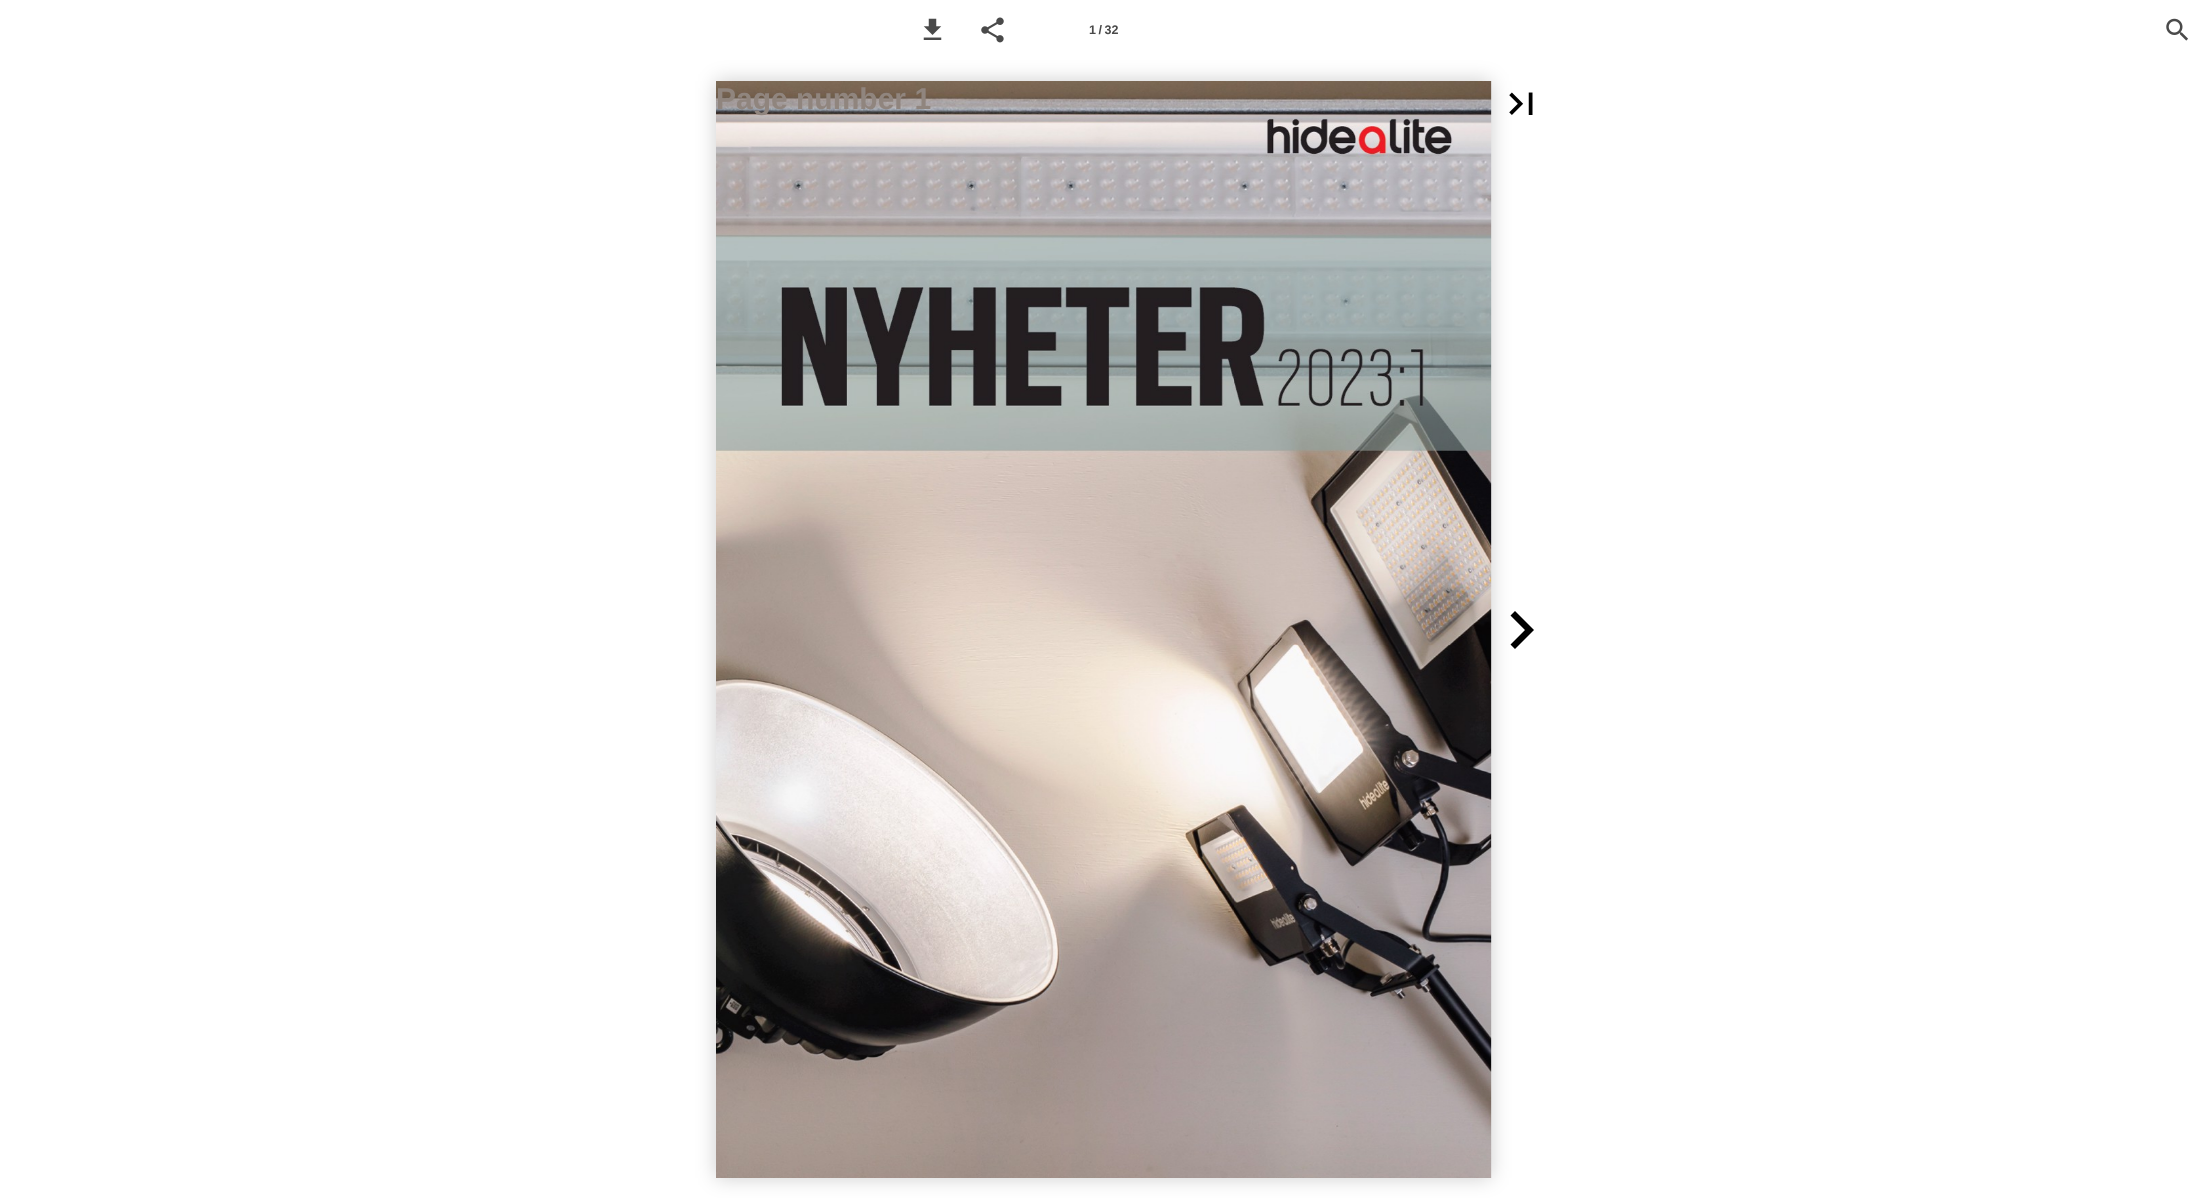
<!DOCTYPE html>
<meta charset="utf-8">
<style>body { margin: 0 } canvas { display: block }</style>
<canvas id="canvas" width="2207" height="1198"></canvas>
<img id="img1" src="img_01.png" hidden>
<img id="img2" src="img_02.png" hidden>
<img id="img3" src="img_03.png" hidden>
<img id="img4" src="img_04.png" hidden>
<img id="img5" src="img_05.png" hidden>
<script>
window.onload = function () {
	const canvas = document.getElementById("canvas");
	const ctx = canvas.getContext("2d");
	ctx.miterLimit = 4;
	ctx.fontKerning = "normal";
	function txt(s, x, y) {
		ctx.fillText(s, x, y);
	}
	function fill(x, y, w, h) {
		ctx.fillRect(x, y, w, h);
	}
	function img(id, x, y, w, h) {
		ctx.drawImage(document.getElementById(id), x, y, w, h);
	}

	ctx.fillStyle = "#FFFFFF";
	fill(0, 0, 2207, 1198);
	img("img1", 923, 18, 19, 22);
	img("img2", 981, 17, 23, 26);
	img("img3", 2166, 18, 22, 23);
	ctx.fillStyle = "rgba(0, 0, 0, 0.2)";
	ctx.filter = "blur(10px)";
	ctx.beginPath();
	ctx.rect(716, 81, 775, 1097);
	ctx.fill();
	ctx.filter = "none";
	img("img4", 716, 81, 776, 1097);
	img("img5", 1509, 92, 24, 23);
	ctx.fillStyle = "#000000";
	ctx.beginPath();
	ctx.moveTo(1515, 611);
	ctx.lineTo(1510.5, 615.5);
	ctx.lineTo(1525, 630);
	ctx.lineTo(1510.5, 644.5);
	ctx.lineTo(1515, 649);
	ctx.lineTo(1534, 630);
	ctx.closePath();
	ctx.fill();
	ctx.font = "bold 12.5px Liberation Sans";
	ctx.fillStyle = "#4A4A4A";
	txt("1 / 32", 1089, 34);
	ctx.font = "bold 30px Liberation Sans";
	ctx.fillStyle = "#90857E";
	txt("Page number 1", 716, 109);
};
</script>
